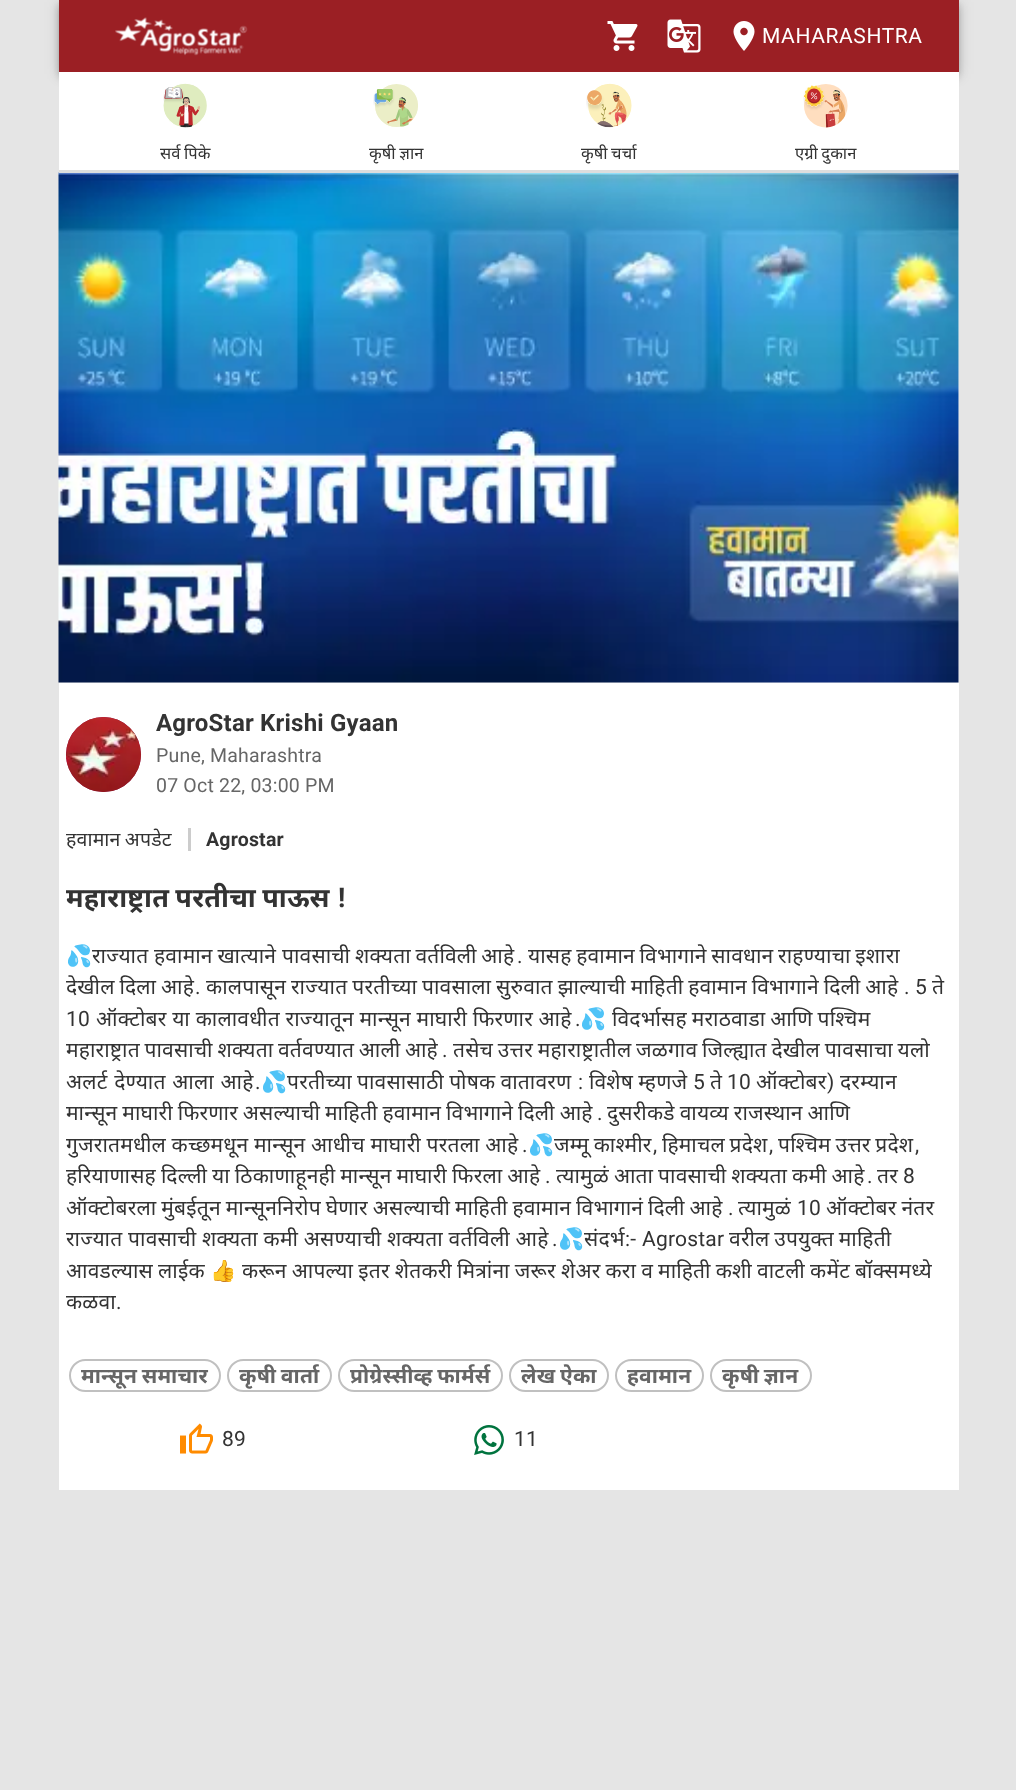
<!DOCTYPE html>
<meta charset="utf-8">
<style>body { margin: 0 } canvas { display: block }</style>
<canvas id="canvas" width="1016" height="1790"></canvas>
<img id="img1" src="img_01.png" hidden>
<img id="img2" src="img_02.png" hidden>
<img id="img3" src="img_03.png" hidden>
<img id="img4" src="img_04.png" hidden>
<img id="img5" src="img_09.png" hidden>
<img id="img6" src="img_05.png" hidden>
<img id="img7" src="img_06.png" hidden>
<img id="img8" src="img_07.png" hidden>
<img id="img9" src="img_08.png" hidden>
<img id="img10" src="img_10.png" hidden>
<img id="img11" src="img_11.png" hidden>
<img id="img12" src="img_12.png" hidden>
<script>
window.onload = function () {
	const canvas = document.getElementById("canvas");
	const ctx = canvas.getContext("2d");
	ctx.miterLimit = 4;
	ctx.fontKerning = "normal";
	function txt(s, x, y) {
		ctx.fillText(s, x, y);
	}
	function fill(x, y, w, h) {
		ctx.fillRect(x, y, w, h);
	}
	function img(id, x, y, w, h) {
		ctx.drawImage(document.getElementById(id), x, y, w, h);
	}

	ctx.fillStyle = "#E5E5E5";
	fill(0, 0, 1016, 1790);
	ctx.fillStyle = "rgba(0, 0, 0, 0.12)";
	ctx.filter = "blur(7.5px)";
	ctx.beginPath();
	ctx.rect(59, 2, 900, 72);
	ctx.fill();
	ctx.filter = "none";
	ctx.fillStyle = "rgba(0, 0, 0, 0.14)";
	ctx.filter = "blur(4px)";
	ctx.beginPath();
	ctx.rect(59, 6, 900, 72);
	ctx.fill();
	ctx.filter = "none";
	ctx.fillStyle = "rgba(0, 0, 0, 0.2)";
	ctx.filter = "blur(3px)";
	ctx.beginPath();
	ctx.rect(60, 5, 897, 69);
	ctx.fill();
	ctx.filter = "none";
	ctx.fillStyle = "#9B1F24";
	fill(59, 0, 900, 72);
	img("img1", 115, 17, 133, 39);
	img("img2", 607, 21, 31, 30);
	img("img3", 667, 19, 34, 34);
	img("img4", 733, 21, 22, 30);
	ctx.fillStyle = "#FFFFFF";
	fill(59, 72, 900, 98);
	ctx.fillStyle = "#F1F1F1";
	fill(59, 173, 900, 510);
	img("img5", 58, 172, 901, 511);
	ctx.fillStyle = "#DDDDDD";
	fill(59, 170, 900, 3);
	img("img6", 163, 83, 44, 45);
	img("img7", 373, 84, 45, 43);
	img("img8", 586, 83, 46, 45);
	img("img9", 803, 84, 45, 44);
	ctx.fillStyle = "#FFFFFF";
	fill(59, 683, 900, 807);
	ctx.fillStyle = "#880E4F";
	ctx.beginPath();
	ctx.arc(103.5, 754.5, 37.5, 0, Math.PI * 2);
	ctx.fill();
	img("img10", 66, 717, 75, 75);
	ctx.fillStyle = "#CCCCCC";
	fill(188, 828, 3, 23);
	ctx.beginPath();
	ctx.roundRect(70, 1360, 150, 31, 15.5);
	ctx.strokeStyle = "#C0C0C0";
	ctx.lineWidth = 2;
	ctx.stroke();
	ctx.beginPath();
	ctx.roundRect(228, 1360, 103, 31, 15.5);
	ctx.stroke();
	ctx.beginPath();
	ctx.roundRect(339, 1360, 163, 31, 15.5);
	ctx.stroke();
	ctx.beginPath();
	ctx.roundRect(510, 1360, 98, 31, 15.5);
	ctx.stroke();
	ctx.beginPath();
	ctx.roundRect(616, 1360, 87, 31, 15.5);
	ctx.stroke();
	ctx.beginPath();
	ctx.roundRect(711, 1360, 100, 31, 15.5);
	ctx.stroke();
	img("img11", 180, 1423, 33, 31);
	img("img12", 474, 1425, 30, 30);
	ctx.letterSpacing = "0.6px";
	ctx.font = "21px Roboto";
	ctx.fillStyle = "#FFFFFF";
	txt("MAHARASHTRA", 762, 43);
	ctx.letterSpacing = "0.1px";
	ctx.wordSpacing = "-1px";
	ctx.font = "16.5px 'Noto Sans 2'";
	ctx.fillStyle = "#333333";
	txt("सर्व पिके", 160, 159);
	ctx.wordSpacing = "-0.75px";
	txt("कृषी ज्ञान", 369, 159);
	ctx.wordSpacing = "-1px";
	txt("कृषी चर्चा", 581, 159);
	txt("एग्री दुकान", 795, 159);
	ctx.letterSpacing = "0.2px";
	ctx.wordSpacing = "0px";
	ctx.font = "bold 24px Roboto";
	txt("AgroStar Krishi Gyaan", 156, 731);
	ctx.font = "19.5px Roboto";
	ctx.fillStyle = "#666666";
	txt("Pune, Maharashtra", 156, 762);
	txt("07 Oct 22, 03:00 PM", 156, 792);
	ctx.wordSpacing = "-1px";
	ctx.font = "19.5px Noto Sans";
	ctx.fillStyle = "#333333";
	txt("हवामान अपडेट", 66, 846);
	ctx.wordSpacing = "0px";
	ctx.font = "bold 19.5px Roboto";
	txt("Agrostar", 206, 846);
	ctx.wordSpacing = "-1px";
	ctx.font = "bold 27px Noto Sans";
	txt("महाराष्ट्रात परतीचा पाऊस", 66, 907);
	ctx.wordSpacing = "0px";
	ctx.font = "bold 27px Roboto";
	txt("!", 338, 907);
	ctx.font = "21px Noto Color Emoji";
	txt("💦", 66, 963);
	ctx.font = "21px Noto Sans";
	txt("राज्यात", 92, 963);
	ctx.wordSpacing = "-1px";
	txt("हवामान खात्याने", 154, 963);
	txt("पावसाची शक्यता वर्तविली आहे", 282, 963);
	ctx.wordSpacing = "0px";
	ctx.font = "21px Roboto";
	txt(".", 517, 963);
	ctx.wordSpacing = "-1px";
	ctx.font = "21px Noto Sans";
	txt("यासह हवामान विभागाने सावधान राहण्याचा इशारा", 528, 963);
	ctx.save();
	ctx.beginPath();
	ctx.rect(66, 941, 885, 378);
	ctx.clip();
	ctx.wordSpacing = "-0.75px";
	txt("देखील दिला आहे", 66, 994);
	ctx.restore();
	ctx.wordSpacing = "0px";
	ctx.font = "21px Roboto";
	txt(".", 195, 994);
	ctx.wordSpacing = "-0.75px";
	ctx.font = "21px Noto Sans";
	txt("कालपासून राज्यात परतीच्या पावसाला सुरुवात झाल्याची माहिती हवामान विभागाने दिली आहे", 206, 994);
	ctx.wordSpacing = "0px";
	ctx.font = "21px Roboto";
	txt(".", 904, 994);
	txt("5", 915, 994);
	ctx.font = "21px Noto Sans";
	txt("ते", 932, 994);
	ctx.font = "21px Roboto";
	txt("10", 66, 1026);
	ctx.font = "21px Noto Sans";
	txt("ऑक्टोबर या कालावधीत राज्यातून मान्सून माघारी फिरणार आहे", 96, 1026);
	ctx.font = "21px Roboto";
	txt(".", 575, 1026);
	ctx.font = "21px Noto Color Emoji";
	txt("💦", 580, 1026);
	ctx.wordSpacing = "-0.75px";
	ctx.font = "21px Noto Sans";
	txt("विदर्भासह मराठवाडा आणि पश्चिम", 612, 1026);
	ctx.wordSpacing = "-1px";
	txt("महाराष्ट्रात पावसाची शक्यता वर्तवण्यात आली आहे", 66, 1057);
	ctx.wordSpacing = "0px";
	ctx.font = "21px Roboto";
	txt(".", 442, 1057);
	ctx.wordSpacing = "-1px";
	ctx.font = "21px Noto Sans";
	txt("तसेच उत्तर महाराष्ट्रातील जळगाव जिल्ह्यात देखील पावसाचा यलो", 453, 1057);
	ctx.wordSpacing = "1px";
	txt("अलर्ट देण्यात आला आहे", 66, 1089);
	ctx.wordSpacing = "0px";
	ctx.font = "21px Roboto";
	txt(".", 255, 1089);
	ctx.font = "21px Noto Color Emoji";
	txt("💦", 261, 1089);
	ctx.wordSpacing = "-0.5px";
	ctx.font = "21px Noto Sans";
	txt("परतीच्या पावसासाठी पोषक वातावरण", 287, 1089);
	ctx.wordSpacing = "0px";
	ctx.font = "21px Roboto";
	txt(":", 578, 1089);
	ctx.wordSpacing = "-0.5px";
	ctx.font = "21px Noto Sans";
	txt("विशेष म्हणजे", 589, 1089);
	ctx.wordSpacing = "0px";
	ctx.font = "21px Roboto";
	txt("5", 693, 1089);
	ctx.font = "21px Noto Sans";
	txt("ते", 710, 1089);
	ctx.font = "21px Roboto";
	txt("10", 727, 1089);
	ctx.font = "21px Noto Sans";
	txt("ऑक्टोबर", 756, 1089);
	ctx.font = "21px Roboto";
	txt(")", 827, 1089);
	ctx.font = "21px Noto Sans";
	txt("दरम्यान", 840, 1089);
	ctx.wordSpacing = "-0.75px";
	txt("मान्सून माघारी फिरणार असल्याची माहिती हवामान विभागाने दिली आहे", 66, 1120);
	ctx.wordSpacing = "0px";
	ctx.font = "21px Roboto";
	txt(".", 597, 1120);
	ctx.wordSpacing = "-0.75px";
	ctx.font = "21px Noto Sans";
	txt("दुसरीकडे वायव्य राजस्थान आणि", 607, 1120);
	ctx.save();
	ctx.beginPath();
	ctx.rect(66, 941, 885, 378);
	ctx.clip();
	ctx.wordSpacing = "0px";
	txt("गुजरातमधील कच्छमधून मान्सून आधीच माघारी परतला आहे", 66, 1152);
	ctx.restore();
	ctx.wordSpacing = "0px";
	ctx.font = "21px Roboto";
	txt(".", 522, 1152);
	ctx.font = "21px Noto Color Emoji";
	txt("💦", 528, 1152);
	ctx.wordSpacing = "-1px";
	ctx.font = "21px Noto Sans";
	txt("जम्मू काश्मीर", 554, 1152);
	ctx.wordSpacing = "0px";
	ctx.font = "21px Roboto";
	txt(",", 653, 1152);
	ctx.wordSpacing = "-1px";
	ctx.font = "21px Noto Sans";
	txt("हिमाचल प्रदेश", 662, 1152);
	ctx.wordSpacing = "0px";
	ctx.font = "21px Roboto";
	txt(",", 769, 1152);
	ctx.wordSpacing = "-1px";
	ctx.font = "21px Noto Sans";
	txt("पश्चिम उत्तर प्रदेश", 778, 1152);
	ctx.wordSpacing = "0px";
	ctx.font = "21px Roboto";
	txt(",", 915, 1152);
	ctx.wordSpacing = "-0.75px";
	ctx.font = "21px Noto Sans";
	txt("हरियाणासह दिल्ली या ठिकाणाहूनही मान्सून माघारी फिरला आहे", 66, 1183);
	ctx.wordSpacing = "0px";
	ctx.font = "21px Roboto";
	txt(".", 545, 1183);
	ctx.wordSpacing = "-0.75px";
	ctx.font = "21px Noto Sans";
	txt("त्यामुळं आता पावसाची शक्यता कमी आहे", 556, 1183);
	ctx.wordSpacing = "0px";
	ctx.font = "21px Roboto";
	txt(".", 867, 1183);
	ctx.font = "21px Noto Sans";
	txt("तर", 877, 1183);
	ctx.font = "21px Roboto";
	txt("8", 903, 1183);
	ctx.wordSpacing = "-0.75px";
	ctx.font = "21px Noto Sans";
	txt("ऑक्टोबरला मुंबईतून मान्सूननिरोप घेणार असल्याची माहिती हवामान विभागानं दिली आहे", 66, 1215);
	ctx.wordSpacing = "0px";
	ctx.font = "21px Roboto";
	txt(".", 728, 1215);
	ctx.font = "21px Noto Sans";
	txt("त्यामुळं", 738, 1215);
	ctx.font = "21px Roboto";
	txt("10", 797, 1215);
	ctx.wordSpacing = "-0.75px";
	ctx.font = "21px Noto Sans";
	txt("ऑक्टोबर नंतर", 826, 1215);
	ctx.wordSpacing = "0px";
	txt("राज्यात पावसाची शक्यता कमी असण्याची शक्यता वर्तविली आहे", 66, 1246);
	ctx.font = "21px Roboto";
	txt(".", 552, 1246);
	ctx.font = "21px Noto Color Emoji";
	txt("💦", 558, 1246);
	ctx.font = "21px Noto Sans";
	txt("संदर्भ", 584, 1246);
	ctx.font = "21px Roboto";
	txt(":-", 625, 1246);
	txt("Agrostar", 642, 1246);
	ctx.wordSpacing = "-1px";
	ctx.font = "21px Noto Sans";
	txt("वरील उपयुक्त माहिती", 729, 1246);
	ctx.wordSpacing = "-0.6px";
	txt("आवडल्यास लाईक", 66, 1278);
	ctx.wordSpacing = "0px";
	ctx.font = "21px Noto Color Emoji";
	txt("👍", 210, 1278);
	ctx.wordSpacing = "-0.6px";
	ctx.font = "21px Noto Sans";
	txt("करून आपल्या इतर शेतकरी मित्रांना जरूर शेअर करा व माहिती कशी वाटली कमेंट बॉक्समध्ये", 242, 1278);
	ctx.wordSpacing = "0px";
	txt("कळवा", 66, 1309);
	ctx.font = "21px Roboto";
	txt(".", 116, 1309);
	ctx.wordSpacing = "-1px";
	ctx.font = "bold 21px Noto Sans";
	ctx.fillStyle = "#666666";
	txt("मान्सून समाचार", 81, 1383);
	txt("कृषी वार्ता", 239, 1383);
	txt("प्रोग्रेस्सीव्ह फार्मर्स", 350, 1383);
	txt("लेख ऐका", 521, 1383);
	ctx.wordSpacing = "0px";
	txt("हवामान", 627, 1383);
	ctx.wordSpacing = "-1px";
	txt("कृषी ज्ञान", 722, 1383);
	ctx.wordSpacing = "0px";
	ctx.font = "21px Roboto";
	ctx.fillStyle = "#333333";
	txt("89", 222, 1446);
	txt("11", 514, 1446);
};
</script>
